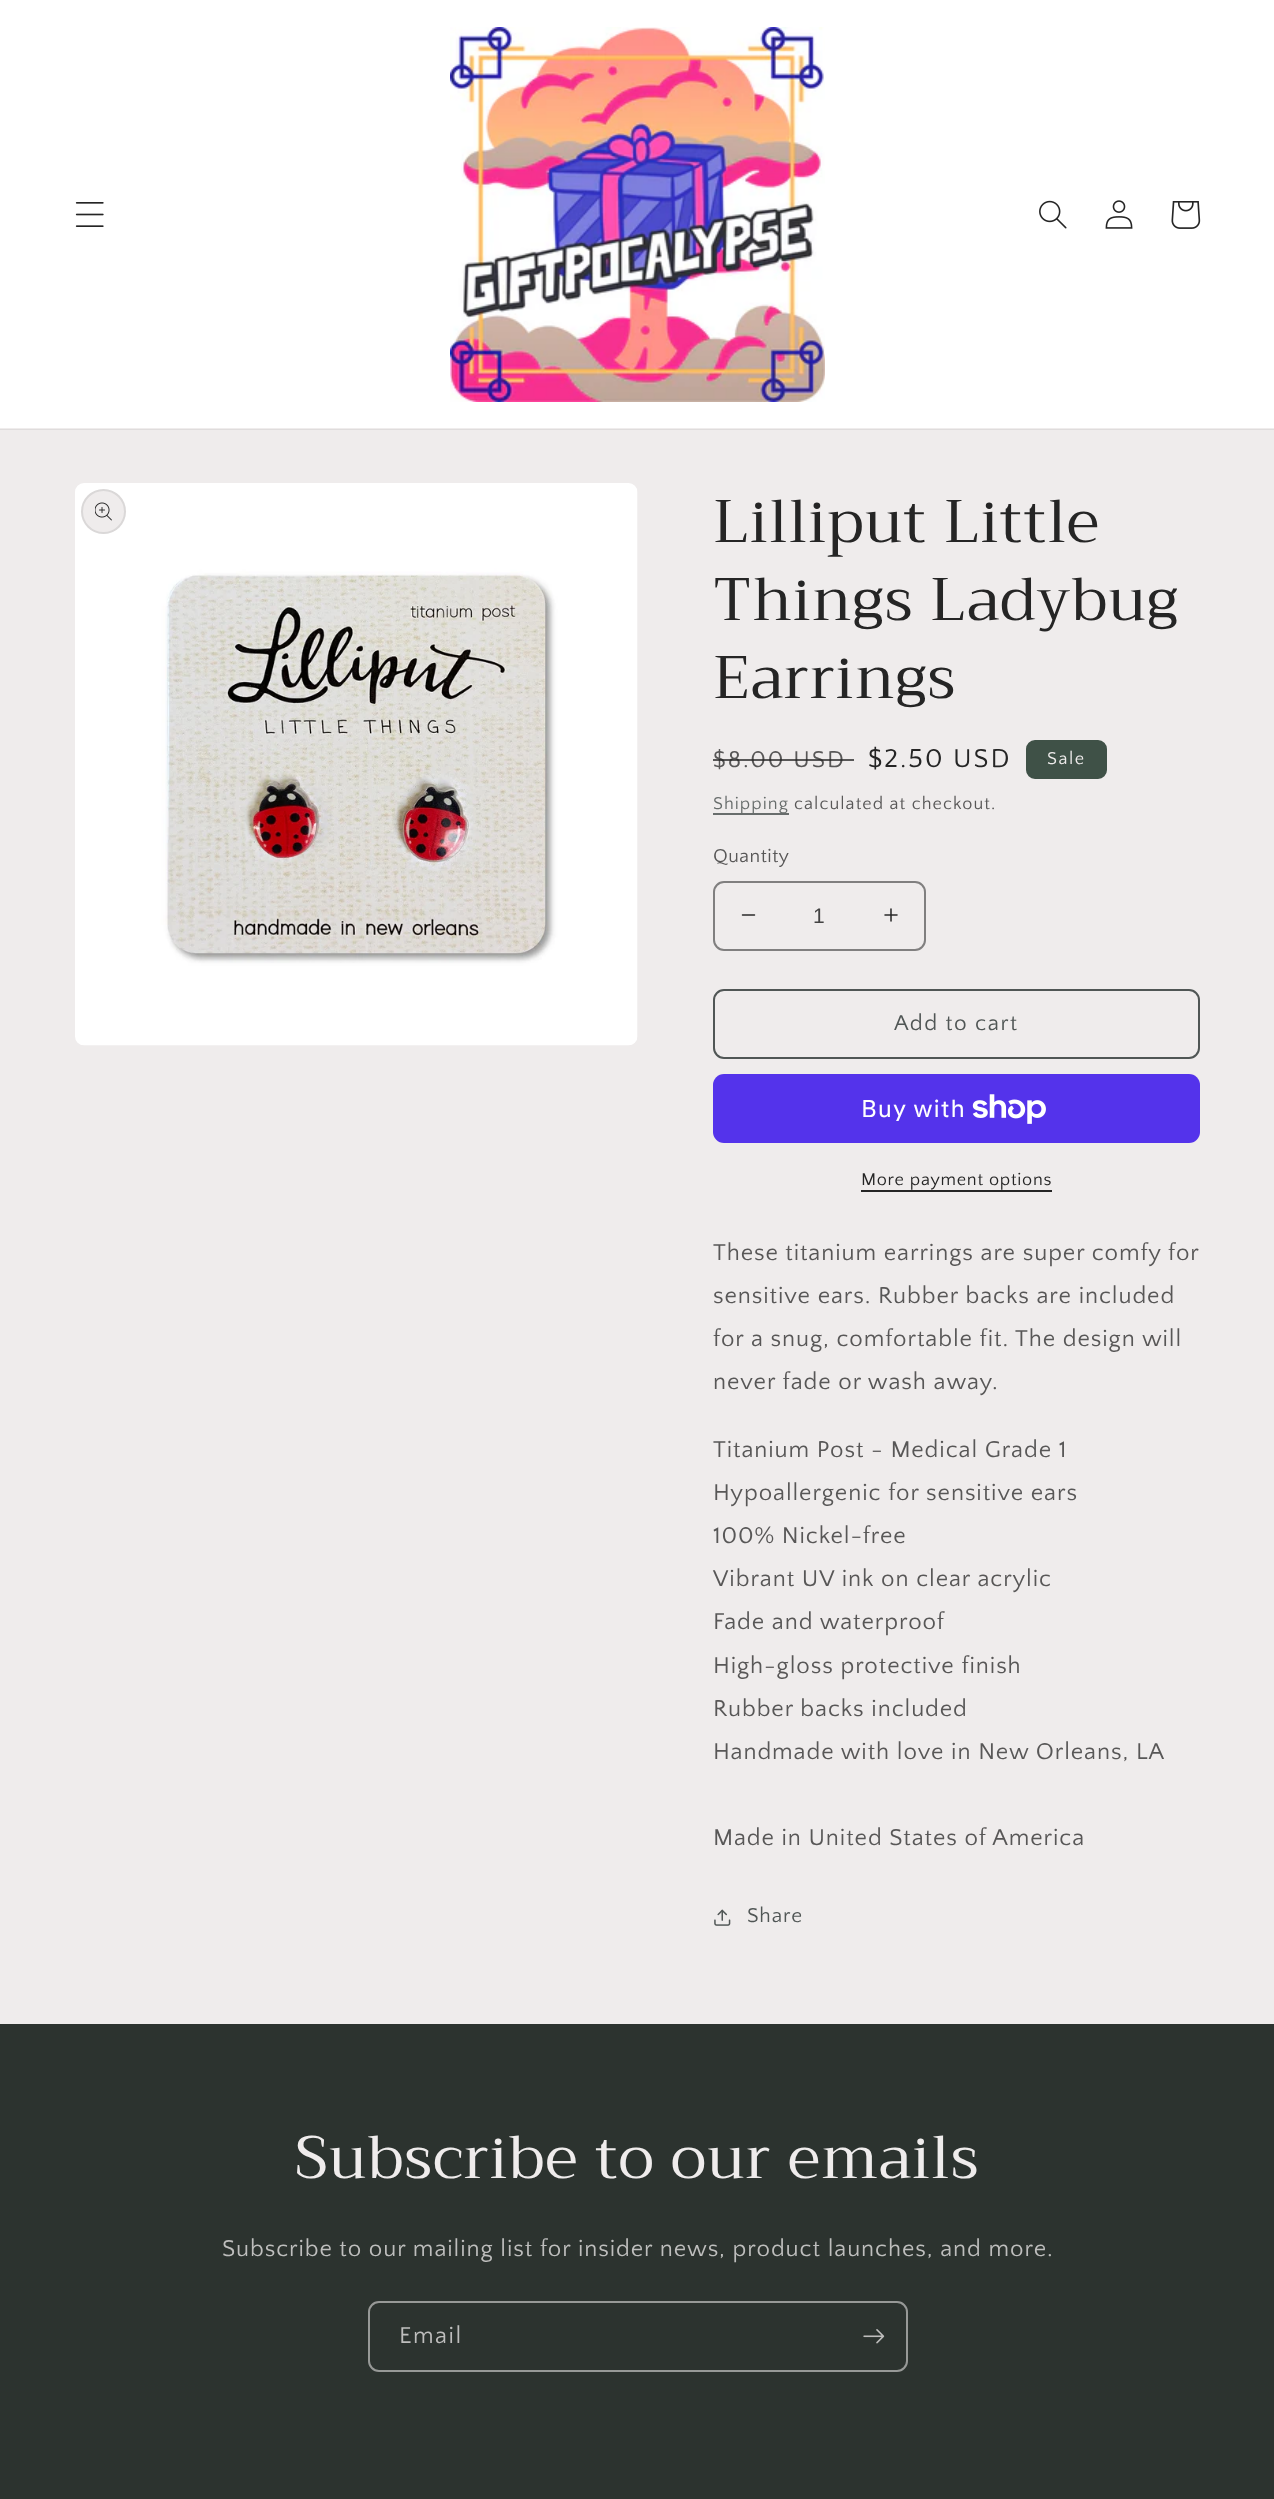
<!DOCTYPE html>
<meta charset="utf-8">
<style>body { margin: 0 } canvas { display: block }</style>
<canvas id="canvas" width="1274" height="2499"></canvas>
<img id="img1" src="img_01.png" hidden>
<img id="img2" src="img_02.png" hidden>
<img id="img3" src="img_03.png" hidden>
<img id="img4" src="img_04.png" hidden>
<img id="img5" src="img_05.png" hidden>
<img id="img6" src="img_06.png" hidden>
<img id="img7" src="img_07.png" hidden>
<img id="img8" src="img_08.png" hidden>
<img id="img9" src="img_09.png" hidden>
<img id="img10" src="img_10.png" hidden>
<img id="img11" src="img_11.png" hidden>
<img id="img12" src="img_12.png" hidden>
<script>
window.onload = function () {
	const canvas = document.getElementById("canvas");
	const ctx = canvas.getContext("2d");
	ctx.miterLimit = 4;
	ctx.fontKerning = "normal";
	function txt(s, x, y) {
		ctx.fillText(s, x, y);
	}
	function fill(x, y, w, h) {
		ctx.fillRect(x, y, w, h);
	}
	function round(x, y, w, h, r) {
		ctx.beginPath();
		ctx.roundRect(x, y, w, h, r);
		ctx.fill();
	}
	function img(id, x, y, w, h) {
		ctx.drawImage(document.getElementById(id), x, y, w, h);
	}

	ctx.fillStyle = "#EFECEC";
	fill(0, 0, 1274, 2499);
	ctx.fillStyle = "#DFDCDC";
	fill(0, 429, 1274, 1);
	ctx.fillStyle = "#FFFFFF";
	fill(0, 0, 1274, 428);
	img("img1", 75, 202, 29, 25);
	img("img2", 450, 27, 375, 375);
	img("img3", 1039, 200, 28, 29);
	img("img4", 1105, 200, 28, 29);
	img("img5", 1171, 201, 30, 28);
	img("img6", 75, 483, 563, 563);
	ctx.fillStyle = "#EFECEC";
	ctx.beginPath();
	ctx.arc(103.5, 511.5, 22.5, 0, Math.PI * 2);
	ctx.fill();
	ctx.beginPath();
	ctx.arc(103.5, 511.5, 21.5, 0, Math.PI * 2);
	ctx.strokeStyle = "rgba(37, 37, 37, 0.1)";
	ctx.lineWidth = 2;
	ctx.stroke();
	img("img7", 95, 502, 17, 19);
	ctx.fillStyle = "#3F5147";
	ctx.beginPath();
	ctx.roundRect(1027, 741, 79, 37, 8);
	ctx.fill();
	ctx.strokeStyle = "#3F5147";
	ctx.stroke();
	ctx.fillStyle = "#686D6C";
	fill(713, 813, 76, 2);
	img("img8", 741, 914, 15, 2);
	img("img9", 884, 908, 14, 14);
	ctx.beginPath();
	ctx.roundRect(714, 882, 211, 68, 10);
	ctx.strokeStyle = "#807F7F";
	ctx.stroke();
	ctx.beginPath();
	ctx.roundRect(714, 990, 485, 68, 10);
	ctx.strokeStyle = "#505655";
	ctx.stroke();
	ctx.fillStyle = "#5433EB";
	round(713, 1074, 487, 69, 11);
	img("img10", 972, 1094, 74, 30);
	ctx.fillStyle = "#252525";
	fill(861, 1190, 191, 2);
	img("img11", 714, 1909, 17, 17);
	ctx.fillStyle = "#2C332F";
	fill(0, 2024, 1274, 475);
	ctx.beginPath();
	ctx.roundRect(369, 2302, 538, 69, 10);
	ctx.strokeStyle = "#979997";
	ctx.stroke();
	img("img12", 863, 2329, 22, 15);
	ctx.letterSpacing = "0.9px";
	ctx.font = "60px Trirong";
	ctx.fillStyle = "#252525";
	txt("Lilliput Little", 713, 542);
	txt("Things Ladybug", 713, 620);
	txt("Earrings", 713, 698);
	ctx.letterSpacing = "2px";
	ctx.font = "24px Quattrocento Sans";
	ctx.fillStyle = "#585757";
	txt("$8.00 USD", 713, 767);
	ctx.fillStyle = "rgba(37, 37, 37, 0.75)";
	fill(713, 759, 141, 2);
	ctx.font = "27px Quattrocento Sans";
	ctx.fillStyle = "#252525";
	txt("$2.50 USD", 868, 767);
	ctx.letterSpacing = "1.5px";
	ctx.font = "18px Quattrocento Sans";
	ctx.fillStyle = "#EFECEC";
	txt("Sale", 1047, 764);
	ctx.letterSpacing = "1.05px";
	ctx.fillStyle = "#676C6B";
	txt("Shipping", 713, 809);
	ctx.fillStyle = "#585757";
	txt("calculated at checkout.", 794, 809);
	ctx.letterSpacing = "0.5px";
	ctx.font = "19.5px Quattrocento Sans";
	txt("Quantity", 713, 862);
	ctx.letterSpacing = "0px";
	ctx.font = "21px Liberation Sans";
	ctx.fillStyle = "#434343";
	txt("1", 813, 923);
	ctx.letterSpacing = "1.5px";
	ctx.font = "22.5px Quattrocento Sans";
	ctx.fillStyle = "#505655";
	txt("Add to cart", 894, 1030);
	ctx.letterSpacing = "0.9px";
	ctx.font = "24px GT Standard";
	ctx.fillStyle = "#FFFFFF";
	txt("Buy with", 861, 1117);
	ctx.letterSpacing = "0.75px";
	ctx.font = "18px Quattrocento Sans";
	ctx.fillStyle = "#252525";
	txt("More payment options", 861, 1185);
	ctx.letterSpacing = "0.9px";
	ctx.font = "24px Quattrocento Sans";
	ctx.fillStyle = "#585757";
	txt("These titanium earrings are super comfy for", 713, 1260);
	txt("sensitive ears. Rubber backs are included", 713, 1303);
	txt("for a snug, comfortable fit. The design will", 713, 1346);
	txt("never fade or wash away.", 713, 1389);
	txt("Titanium Post - Medical Grade 1", 713, 1457);
	txt("Hypoallergenic for sensitive ears", 713, 1500);
	txt("100% Nickel-free", 713, 1543);
	txt("Vibrant UV ink on clear acrylic", 713, 1586);
	txt("Fade and waterproof", 713, 1629);
	txt("High-gloss protective finish", 713, 1673);
	txt("Rubber backs included", 713, 1716);
	txt("Handmade with love in New Orleans, LA", 713, 1759);
	txt("Made in United States of America", 713, 1845);
	ctx.font = "21px Quattrocento Sans";
	ctx.fillStyle = "#505655";
	txt("Share", 747, 1922);
	ctx.font = "60px Trirong";
	ctx.fillStyle = "#EFECEC";
	txt("Subscribe to our emails", 295, 2178);
	ctx.font = "24px Quattrocento Sans";
	ctx.fillStyle = "#BEBEBD";
	txt("Subscribe to our mailing list for insider news, product launches, and more.", 222, 2256);
	ctx.letterSpacing = "1.5px";
	txt("Email", 399, 2343);
};
</script>
